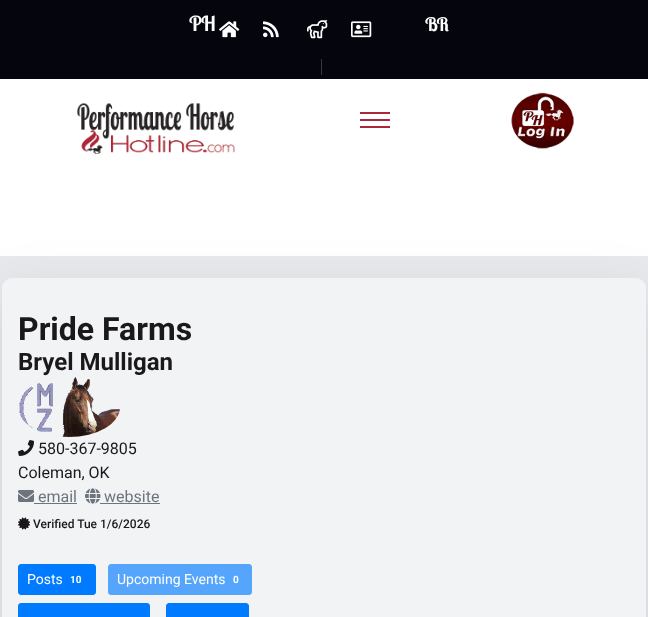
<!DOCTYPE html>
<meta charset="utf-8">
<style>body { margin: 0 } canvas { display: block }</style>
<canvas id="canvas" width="648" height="617"></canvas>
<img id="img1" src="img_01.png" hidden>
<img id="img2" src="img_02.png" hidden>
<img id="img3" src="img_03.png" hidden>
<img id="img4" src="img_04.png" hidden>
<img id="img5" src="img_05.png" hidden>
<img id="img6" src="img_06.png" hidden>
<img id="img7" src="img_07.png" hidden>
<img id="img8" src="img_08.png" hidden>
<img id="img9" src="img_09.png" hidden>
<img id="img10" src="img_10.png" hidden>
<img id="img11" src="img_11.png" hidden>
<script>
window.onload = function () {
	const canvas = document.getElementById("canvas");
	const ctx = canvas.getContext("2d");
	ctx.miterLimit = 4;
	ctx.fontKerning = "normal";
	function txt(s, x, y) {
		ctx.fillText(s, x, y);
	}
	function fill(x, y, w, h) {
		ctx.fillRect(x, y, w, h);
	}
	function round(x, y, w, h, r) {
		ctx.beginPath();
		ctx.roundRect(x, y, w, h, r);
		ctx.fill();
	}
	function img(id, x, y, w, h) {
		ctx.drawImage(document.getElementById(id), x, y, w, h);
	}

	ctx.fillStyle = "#FFFFFF";
	fill(0, 0, 648, 617);
	ctx.fillStyle = "#05060D";
	fill(0, 0, 648, 79);
	img("img1", 219, 21, 21, 17);
	img("img2", 263, 21, 16, 17);
	img("img3", 307, 20, 21, 19);
	img("img4", 351, 21, 21, 17);
	ctx.fillStyle = "#37383D";
	fill(321, 59, 1, 16);
	img("img5", 76, 103, 159, 51);
	ctx.fillStyle = "#AB273A";
	fill(360, 112, 30, 2);
	fill(360, 119, 30, 2);
	fill(360, 126, 30, 2);
	img("img6", 511, 92, 63, 57);
	ctx.fillStyle = "#E7E9EC";
	fill(0, 256, 648, 361);
	ctx.fillStyle = "rgba(0, 0, 0, 0.1)";
	ctx.filter = "blur(30px)";
	ctx.beginPath();
	ctx.roundRect(2, 298, 644, 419, 10);
	ctx.fill();
	ctx.filter = "none";
	ctx.fillStyle = "#F2F3F5";
	round(2, 278, 644, 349, 10);
	img("img7", 19, 377, 101, 60);
	img("img8", 18, 440, 16, 16);
	img("img9", 18, 490, 16, 12);
	ctx.fillStyle = "#6C757D";
	fill(34, 503, 43, 1);
	img("img10", 85, 488, 16, 16);
	fill(100, 503, 60, 1);
	img("img11", 18, 517, 12, 13);
	ctx.fillStyle = "#007BFF";
	ctx.beginPath();
	ctx.roundRect(18.5, 564.5, 77, 30, 2.5);
	ctx.fill();
	ctx.strokeStyle = "#007BFF";
	ctx.stroke();
	ctx.fillStyle = "#55A5FC";
	ctx.beginPath();
	ctx.roundRect(108.5, 564.5, 143, 30, 2.5);
	ctx.fill();
	ctx.strokeStyle = "#55A5FC";
	ctx.stroke();
	ctx.fillStyle = "#007BFF";
	ctx.beginPath();
	ctx.roundRect(18.5, 603.5, 131, 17, 2.5);
	ctx.fill();
	ctx.strokeStyle = "#007BFF";
	ctx.stroke();
	ctx.beginPath();
	ctx.roundRect(166.5, 603.5, 82, 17, 2.5);
	ctx.fill();
	ctx.stroke();
	ctx.font = "bold 20px Lobster Two";
	ctx.fillStyle = "#FFFFFF";
	txt("PH", 189, 31);
	ctx.font = "bold 18px Lobster Two";
	txt("BR", 425, 31);
	ctx.font = "bold 32px Roboto";
	ctx.fillStyle = "#1A181B";
	txt("Pride Farms", 18, 340);
	ctx.font = "bold 24px Roboto";
	txt("Bryel Mulligan", 18, 370);
	ctx.font = "16px Roboto";
	txt("580-367-9805", 38, 454);
	txt("Coleman, OK", 18, 478);
	ctx.fillStyle = "#6C757D";
	txt("email", 38, 502);
	txt("website", 104, 502);
	ctx.font = "500 12px Roboto";
	ctx.fillStyle = "#1A181B";
	txt("Verified Tue 1/6/2026", 33, 528);
	ctx.font = "14px Roboto";
	ctx.fillStyle = "#FFFFFF";
	txt("Posts", 27, 584);
	ctx.font = "bold 10px Roboto";
	txt("10", 70, 583);
	ctx.font = "14px Roboto";
	txt("Upcoming Events", 117, 584);
	ctx.font = "bold 10px Roboto";
	txt("0", 233, 583);
};
</script>
